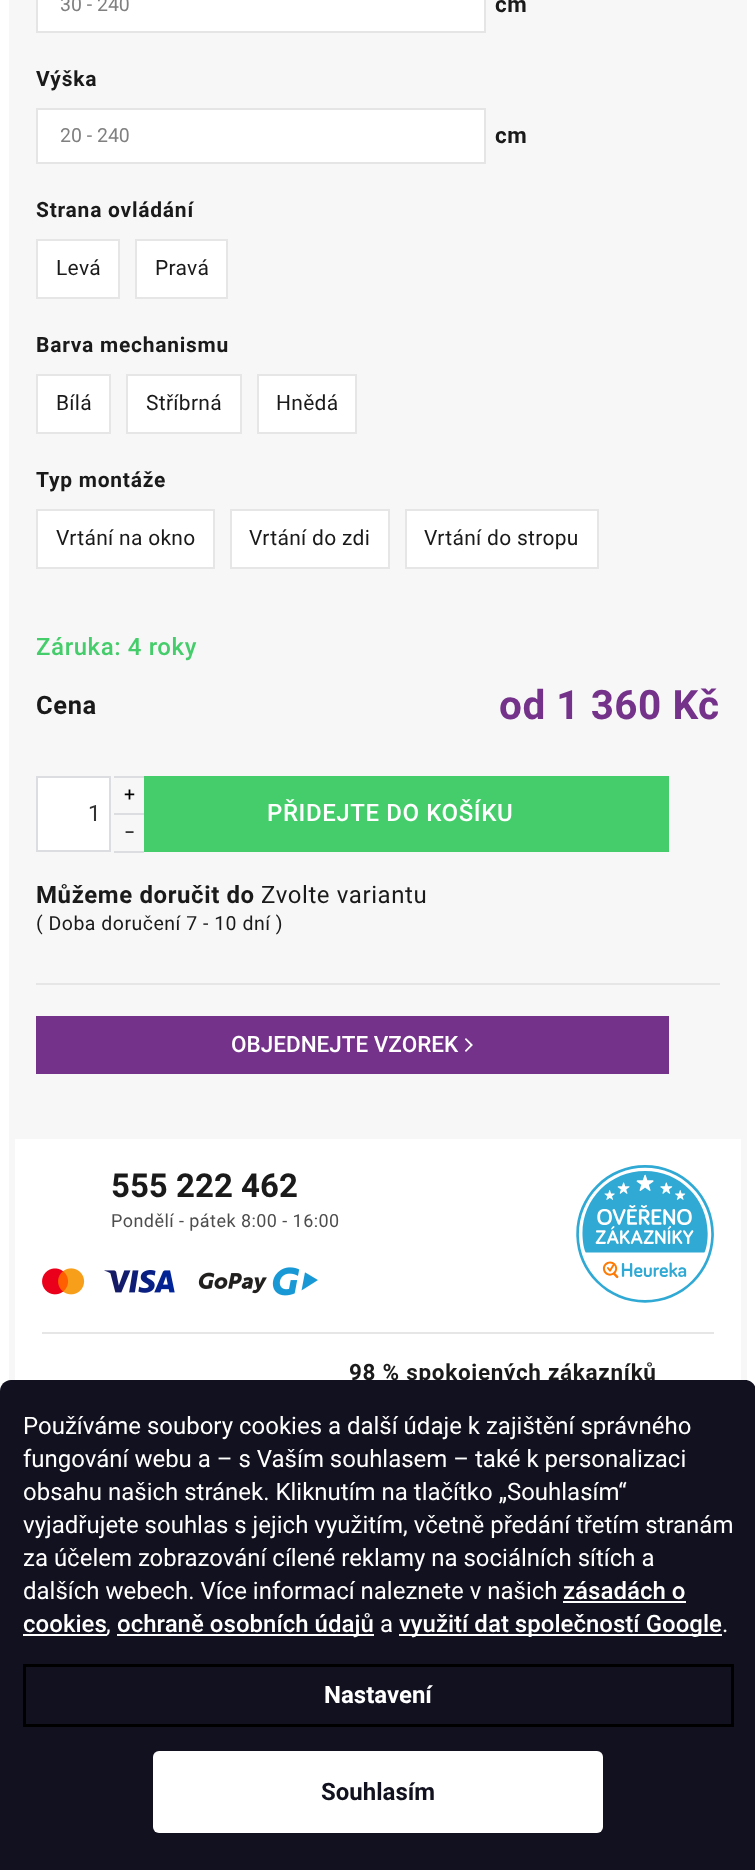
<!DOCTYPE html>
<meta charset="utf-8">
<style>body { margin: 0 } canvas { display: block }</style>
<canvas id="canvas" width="755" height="1870"></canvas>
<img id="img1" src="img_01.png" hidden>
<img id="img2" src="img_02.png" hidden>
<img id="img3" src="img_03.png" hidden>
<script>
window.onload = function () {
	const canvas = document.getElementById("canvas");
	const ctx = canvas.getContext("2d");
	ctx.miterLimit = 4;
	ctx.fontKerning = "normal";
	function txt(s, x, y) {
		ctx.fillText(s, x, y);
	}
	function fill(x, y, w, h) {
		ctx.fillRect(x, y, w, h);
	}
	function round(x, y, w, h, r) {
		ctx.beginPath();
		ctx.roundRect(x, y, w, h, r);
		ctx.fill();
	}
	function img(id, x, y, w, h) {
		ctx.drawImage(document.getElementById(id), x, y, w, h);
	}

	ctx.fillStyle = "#FFFFFF";
	fill(0, 0, 755, 1870);
	ctx.fillStyle = "#F7F7F7";
	fill(9, 0, 738, 1139);
	ctx.fillStyle = "#FFFFFF";
	ctx.beginPath();
	ctx.rect(37, -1, 448, 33);
	ctx.fill();
	ctx.strokeStyle = "#E5E5E5";
	ctx.lineWidth = 2;
	ctx.stroke();
	ctx.beginPath();
	ctx.rect(37, 109, 448, 54);
	ctx.fill();
	ctx.stroke();
	ctx.beginPath();
	ctx.rect(37, 240, 82, 58);
	ctx.fill();
	ctx.strokeStyle = "#E6E6E6";
	ctx.stroke();
	ctx.beginPath();
	ctx.rect(136, 240, 91, 58);
	ctx.fill();
	ctx.stroke();
	ctx.beginPath();
	ctx.rect(37, 375, 73, 58);
	ctx.fill();
	ctx.stroke();
	ctx.beginPath();
	ctx.rect(127, 375, 114, 58);
	ctx.fill();
	ctx.stroke();
	ctx.beginPath();
	ctx.rect(258, 375, 98, 58);
	ctx.fill();
	ctx.stroke();
	ctx.beginPath();
	ctx.rect(37, 510, 177, 58);
	ctx.fill();
	ctx.stroke();
	ctx.beginPath();
	ctx.rect(231, 510, 158, 58);
	ctx.fill();
	ctx.stroke();
	ctx.beginPath();
	ctx.rect(406, 510, 192, 58);
	ctx.fill();
	ctx.stroke();
	ctx.fillStyle = "#DCDDE0";
	fill(114, 776, 30, 2);
	ctx.fillStyle = "#FFFFFF";
	ctx.beginPath();
	ctx.rect(37, 777, 73, 74);
	ctx.fill();
	ctx.strokeStyle = "#DCDDE0";
	ctx.stroke();
	ctx.fillStyle = "#DCDDE0";
	fill(114, 813, 30, 2);
	fill(114, 851, 30, 2);
	ctx.fillStyle = "#46CD6B";
	fill(144, 776, 525, 76);
	ctx.fillStyle = "#E6E6E6";
	fill(36, 983, 684, 2);
	ctx.fillStyle = "#74328A";
	fill(36, 1016, 633, 58);
	img("img1", 465, 1038, 8, 14);
	img("img2", 576, 1165, 138, 138);
	img("img3", 42, 1267, 276, 29);
	ctx.fillStyle = "#E6E6E6";
	fill(42, 1332, 672, 2);
	ctx.fillStyle = "#F7F7F7";
	fill(741, 1133, 6, 248);
	fill(9, 1133, 6, 248);
	ctx.font = "19.5px Roboto";
	ctx.fillStyle = "#808080";
	txt("30 - 240", 60, 11);
	ctx.letterSpacing = "0.6px";
	ctx.font = "bold 22.5px Roboto";
	ctx.fillStyle = "#1A1A1A";
	txt("cm", 495, 12);
	ctx.letterSpacing = "0.75px";
	ctx.font = "bold 21px Roboto";
	txt("Výška", 36, 86);
	ctx.letterSpacing = "0px";
	ctx.font = "19.5px Roboto";
	ctx.fillStyle = "#808080";
	txt("20 - 240", 60, 142);
	ctx.letterSpacing = "0.6px";
	ctx.font = "bold 22.5px Roboto";
	ctx.fillStyle = "#1A1A1A";
	txt("cm", 495, 143);
	ctx.letterSpacing = "0.75px";
	ctx.font = "bold 21px Roboto";
	txt("Strana ovládání", 36, 217);
	ctx.letterSpacing = "0.3px";
	ctx.font = "21px Roboto";
	txt("Levá", 56, 275);
	txt("Pravá", 155, 275);
	ctx.letterSpacing = "0.75px";
	ctx.font = "bold 21px Roboto";
	txt("Barva mechanismu", 36, 352);
	ctx.letterSpacing = "0.3px";
	ctx.font = "21px Roboto";
	txt("Bílá", 56, 410);
	txt("Stříbrná", 146, 410);
	txt("Hnědá", 276, 410);
	ctx.letterSpacing = "0.75px";
	ctx.font = "bold 21px Roboto";
	txt("Typ montáže", 36, 487);
	ctx.letterSpacing = "0.3px";
	ctx.font = "21px Roboto";
	txt("Vrtání na okno", 56, 545);
	txt("Vrtání do zdi", 249, 545);
	txt("Vrtání do stropu", 424, 545);
	ctx.letterSpacing = "0.6px";
	ctx.font = "500 24px Roboto";
	ctx.fillStyle = "#46CD6B";
	txt("Záruka: 4 roky", 36, 655);
	ctx.font = "bold 25.5px Roboto";
	ctx.fillStyle = "#1A1A1A";
	txt("Cena", 36, 714);
	ctx.letterSpacing = "0.5px";
	ctx.font = "bold 40.5px Roboto";
	ctx.fillStyle = "#74328A";
	txt("od 1 360 Kč", 499, 719);
	ctx.letterSpacing = "0px";
	ctx.font = "19.5px Roboto";
	ctx.fillStyle = "#000000";
	txt("+", 124, 801);
	ctx.font = "22.5px Roboto";
	ctx.fillStyle = "#333333";
	txt("1", 88, 821);
	ctx.font = "19.5px Roboto";
	ctx.fillStyle = "#000000";
	txt("−", 124, 839);
	ctx.letterSpacing = "0.6px";
	ctx.font = "500 24px Roboto";
	ctx.fillStyle = "#FFFFFF";
	txt("PŘIDEJTE DO KOŠÍKU", 267, 821);
	ctx.font = "bold 24px Roboto";
	ctx.fillStyle = "#1A1A1A";
	txt("Můžeme doručit do", 36, 903);
	ctx.font = "24px Roboto";
	txt("Zvolte variantu", 261, 903);
	ctx.letterSpacing = "0.5px";
	ctx.font = "19.5px Roboto";
	txt("( Doba doručení 7 - 10 dní )", 36, 930);
	ctx.letterSpacing = "0px";
	ctx.font = "500 22.5px Roboto";
	ctx.fillStyle = "#FFFFFF";
	txt("OBJEDNEJTE VZOREK", 231, 1052);
	ctx.font = "bold 33px Roboto";
	ctx.fillStyle = "#1A1A1A";
	txt("555 222 462", 111, 1197);
	ctx.letterSpacing = "0.45px";
	ctx.font = "18px Roboto";
	ctx.fillStyle = "#4D4D4D";
	txt("Pondělí - pátek 8:00 - 16:00", 111, 1227);
	ctx.letterSpacing = "0.7px";
	ctx.font = "bold 22.5px Roboto";
	ctx.fillStyle = "#1A1A1A";
	txt("98 % spokojených zákazníků", 349, 1380);
	ctx.fillStyle = "#11111F";
	ctx.beginPath();
	ctx.moveTo(11, 1380);
	ctx.lineTo(745, 1380);
	ctx.bezierCurveTo(751, 1380, 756, 1385, 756, 1391);
	ctx.lineTo(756, 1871);
	ctx.lineTo(0, 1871);
	ctx.lineTo(0, 1391);
	ctx.bezierCurveTo(0, 1385, 5, 1380, 11, 1380);
	ctx.closePath();
	ctx.fill();
	ctx.letterSpacing = "0px";
	ctx.font = "24px Roboto";
	ctx.fillStyle = "#FFFFFF";
	txt("Používáme soubory cookies a další údaje k zajištění správného", 23, 1434);
	txt("fungování webu a – s Vaším souhlasem – také k personalizaci", 23, 1467);
	txt("obsahu našich stránek. Kliknutím na tlačítko „Souhlasím“", 23, 1500);
	txt("vyjadřujete souhlas s jejich využitím, včetně předání třetím stranám", 23, 1533);
	txt("za účelem zobrazování cílené reklamy na sociálních sítích a", 23, 1566);
	txt("dalších webech. Více informací naleznete v našich", 23, 1599);
	ctx.font = "500 24px Roboto";
	txt("zásadách o", 563, 1599);
	fill(563, 1601, 123, 2);
	txt("cookies", 23, 1632);
	fill(23, 1634, 84, 2);
	ctx.font = "24px Roboto";
	txt(",", 106, 1632);
	fill(117, 1634, 257, 2);
	ctx.font = "500 24px Roboto";
	txt("ochraně osobních údajů", 117, 1632);
	ctx.font = "24px Roboto";
	txt("a", 380, 1632);
	fill(399, 1634, 323, 2);
	ctx.font = "500 24px Roboto";
	txt("využití dat společností Google", 399, 1632);
	ctx.font = "24px Roboto";
	txt(".", 722, 1632);
	ctx.strokeStyle = "#000000";
	ctx.lineWidth = 3;
	ctx.strokeRect(24.5, 1665.5, 708, 60);
	ctx.font = "bold 24px Roboto";
	txt("Nastavení", 324, 1703);
	round(153, 1751, 450, 82, 6);
	ctx.fillStyle = "#11111F";
	txt("Souhlasím", 321, 1800);
};
</script>
